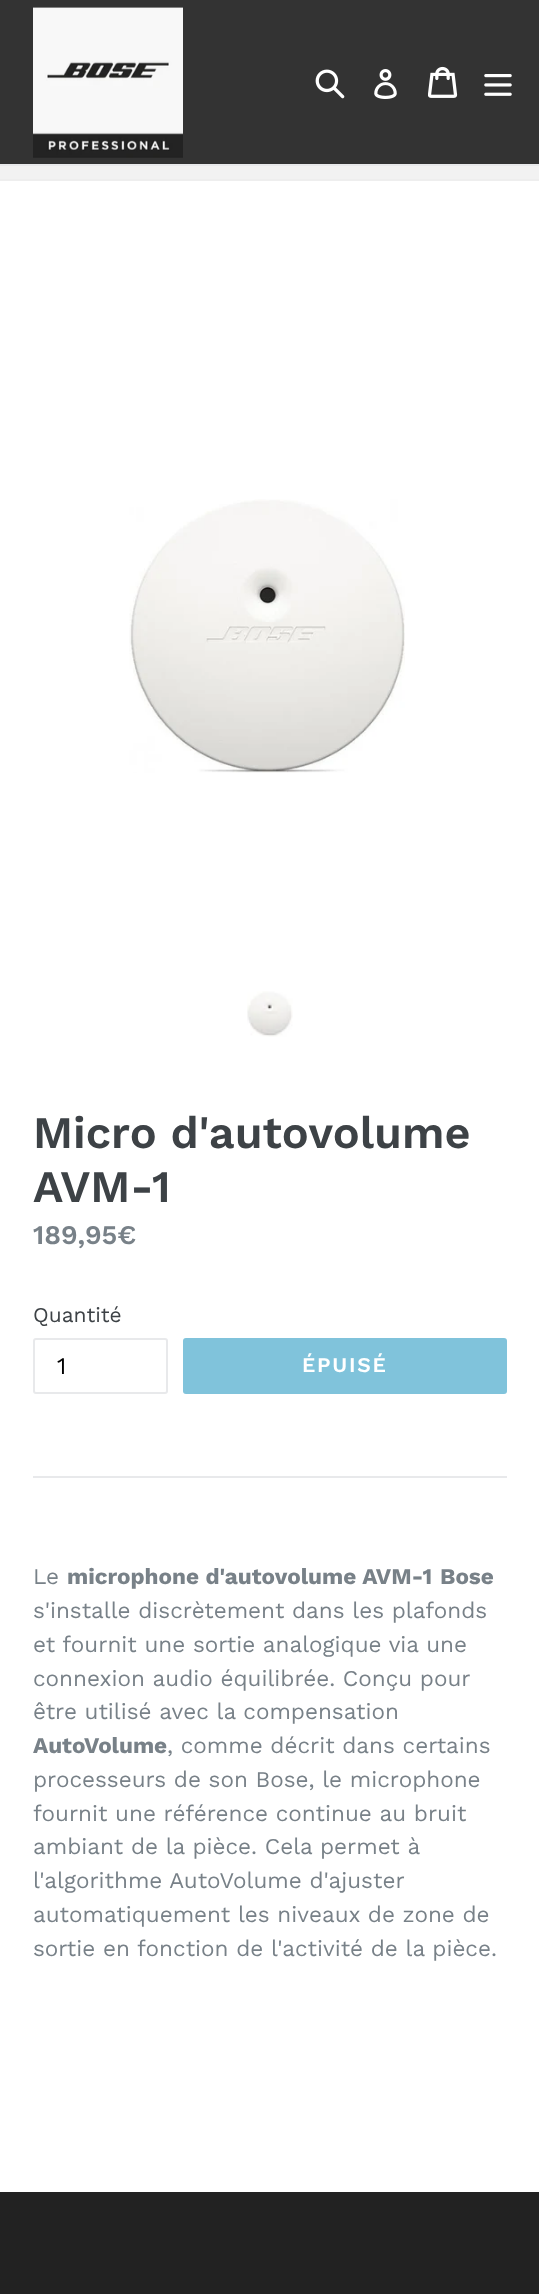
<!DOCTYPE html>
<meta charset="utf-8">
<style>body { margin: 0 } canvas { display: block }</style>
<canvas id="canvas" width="539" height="2294"></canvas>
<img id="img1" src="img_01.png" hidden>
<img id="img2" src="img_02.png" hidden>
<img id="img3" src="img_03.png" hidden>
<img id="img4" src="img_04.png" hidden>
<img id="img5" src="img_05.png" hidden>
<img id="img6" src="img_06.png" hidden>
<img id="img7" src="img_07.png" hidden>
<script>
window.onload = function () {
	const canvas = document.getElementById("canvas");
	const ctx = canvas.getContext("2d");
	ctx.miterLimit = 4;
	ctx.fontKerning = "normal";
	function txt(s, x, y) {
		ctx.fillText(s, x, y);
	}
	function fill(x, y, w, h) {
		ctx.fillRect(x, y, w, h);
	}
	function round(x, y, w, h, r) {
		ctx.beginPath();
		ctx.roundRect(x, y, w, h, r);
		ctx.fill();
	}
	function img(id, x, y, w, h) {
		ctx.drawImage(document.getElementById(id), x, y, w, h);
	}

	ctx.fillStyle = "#FFFFFF";
	fill(0, 0, 539, 2294);
	ctx.fillStyle = "#333333";
	fill(0, 0, 539, 164);
	ctx.fillStyle = "#E8E9EB";
	fill(0, 164, 539, 2);
	img("img1", 33, 7, 150, 151);
	img("img2", 315, 69, 30, 30);
	img("img3", 374, 69, 23, 30);
	img("img4", 428, 66, 30, 32);
	img("img5", 484, 74, 28, 22);
	ctx.fillStyle = "#F2F2F2";
	fill(0, 166, 539, 13);
	ctx.fillStyle = "#EEEEEE";
	fill(0, 179, 539, 2);
	img("img6", 129, 499, 276, 274);
	img("img7", 247, 991, 46, 46);
	ctx.beginPath();
	ctx.roundRect(34, 1339, 133, 54, 2);
	ctx.strokeStyle = "#E8E9EB";
	ctx.lineWidth = 2;
	ctx.stroke();
	ctx.fillStyle = "#80C3DB";
	round(183, 1338, 324, 56, 3);
	ctx.fillStyle = "#E8E9EB";
	fill(33, 1476, 474, 2);
	ctx.fillStyle = "#222222";
	fill(0, 2192, 539, 102);
	ctx.font = "600 45px Work Sans";
	ctx.fillStyle = "#3D4246";
	txt("Micro d'autovolume", 33, 1148);
	txt("AVM-1", 33, 1202);
	ctx.font = "600 27px Work Sans";
	ctx.fillStyle = "#788188";
	txt("189,95€", 33, 1244);
	ctx.font = "21px Work Sans";
	ctx.fillStyle = "#3D4246";
	txt("Quantité", 33, 1322);
	ctx.font = "24px Work Sans";
	ctx.fillStyle = "#000000";
	txt("1", 57, 1374);
	ctx.letterSpacing = "1.75px";
	ctx.font = "600 21px Work Sans";
	ctx.fillStyle = "#FFFFFF";
	txt("ÉPUISÉ", 302, 1372);
	ctx.letterSpacing = "0px";
	ctx.font = "22.5px Work Sans";
	ctx.fillStyle = "#788188";
	txt("Le", 33, 1584);
	ctx.font = "bold 22.5px Work Sans";
	txt("microphone d'autovolume AVM-1", 67, 1584);
	txt("Bose", 440, 1584);
	ctx.font = "22.5px Work Sans";
	txt("s'installe discrètement dans les plafonds", 33, 1618);
	txt("et fournit une sortie analogique via une", 33, 1652);
	txt("connexion audio équilibrée. Conçu pour", 33, 1686);
	txt("être utilisé avec la compensation", 33, 1719);
	ctx.font = "bold 22.5px Work Sans";
	txt("AutoVolume", 33, 1753);
	ctx.font = "22.5px Work Sans";
	txt(", comme décrit dans certains", 167, 1753);
	txt("processeurs de son Bose, le microphone", 33, 1787);
	txt("fournit une référence continue au bruit", 33, 1821);
	txt("ambiant de la pièce. Cela permet à", 33, 1854);
	txt("l'algorithme AutoVolume d'ajuster", 33, 1888);
	txt("automatiquement les niveaux de zone de", 33, 1922);
	txt("sortie en fonction de l'activité de la pièce.", 33, 1956);
};
</script>
